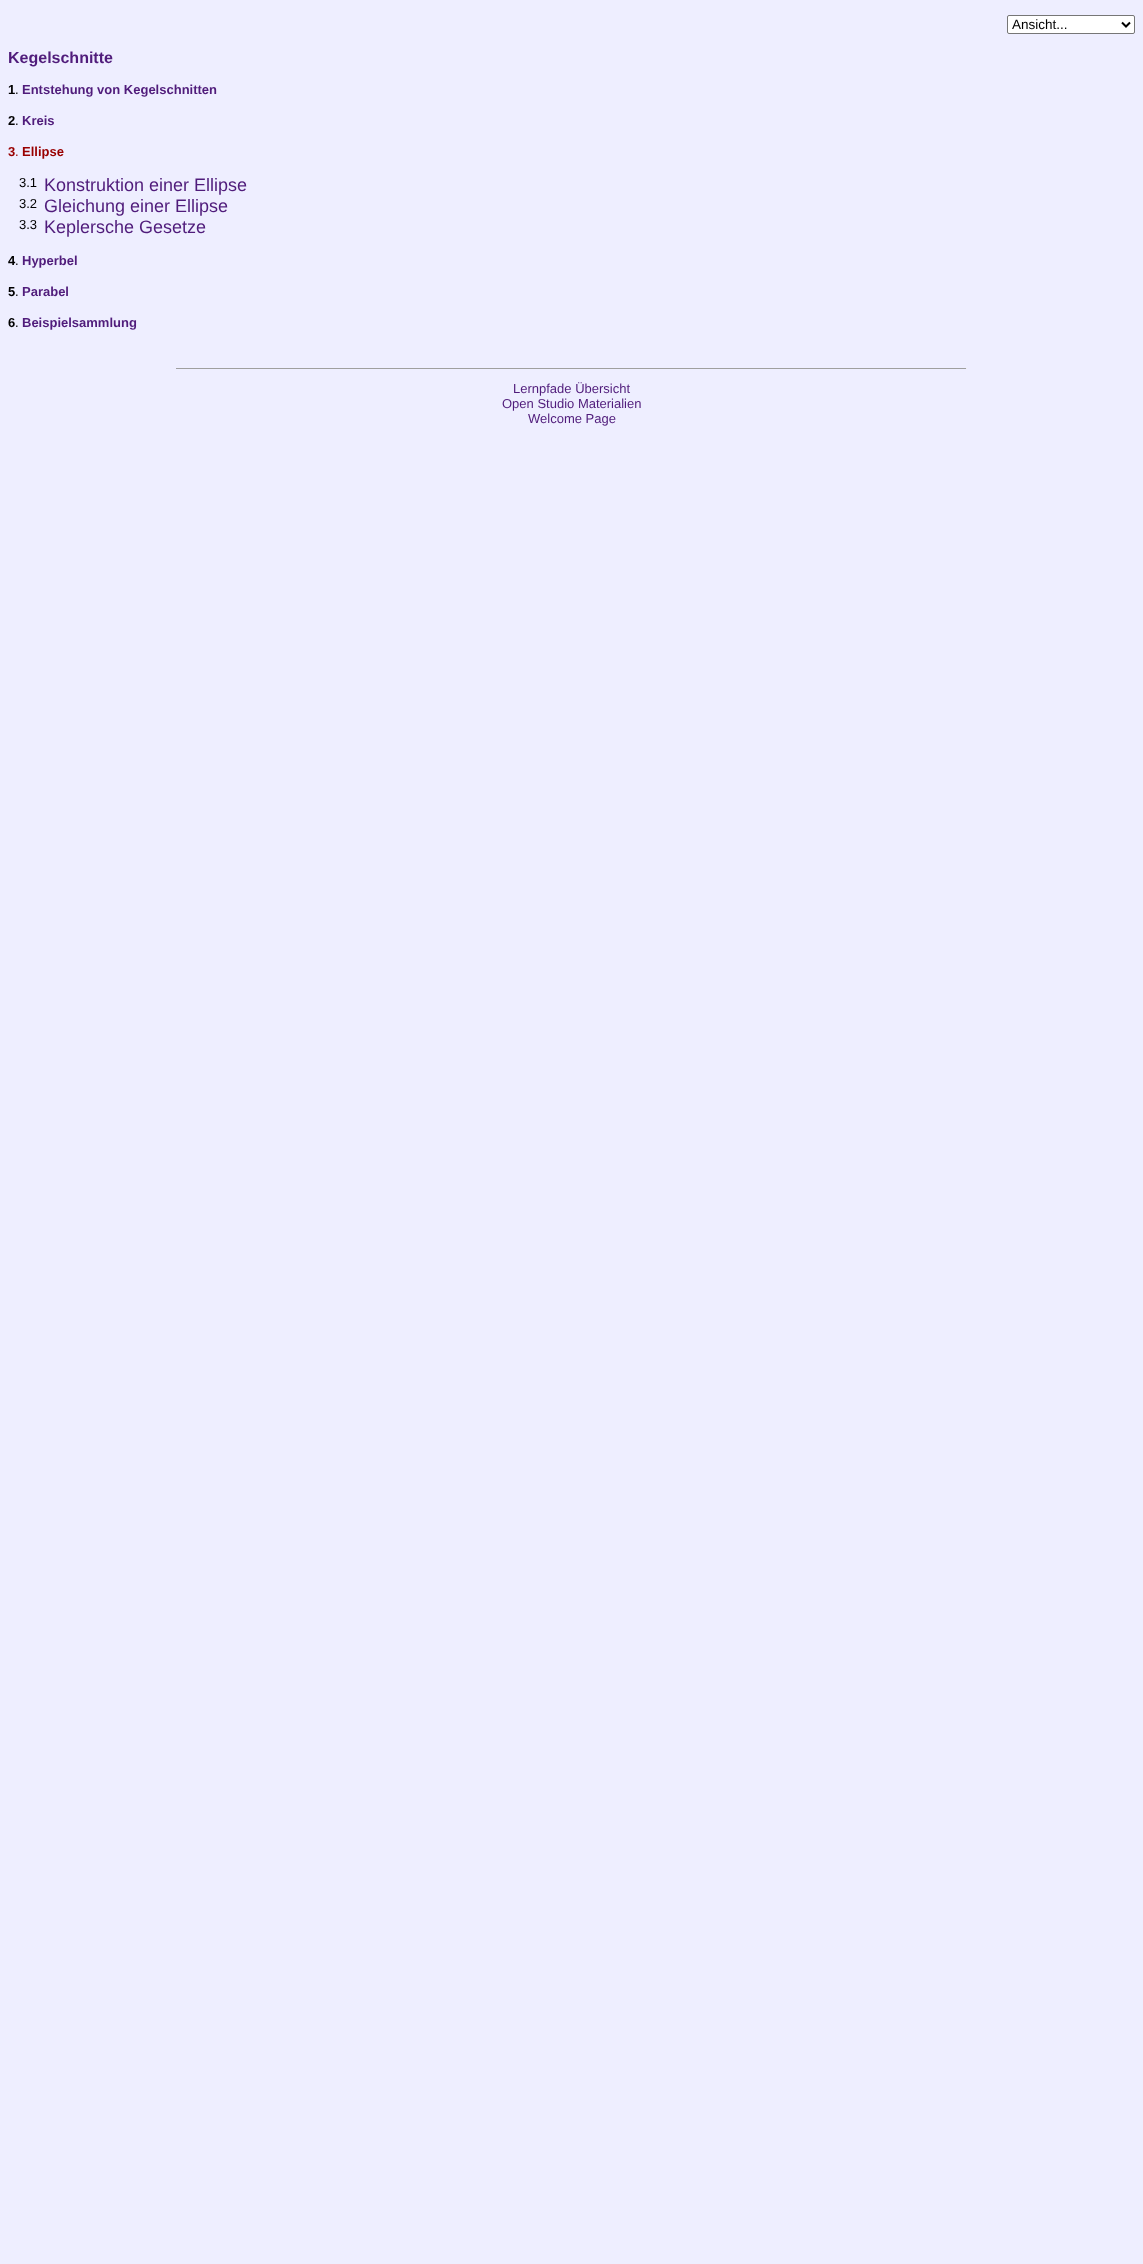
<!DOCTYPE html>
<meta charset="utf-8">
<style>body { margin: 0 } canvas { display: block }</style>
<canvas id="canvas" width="1143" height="2264"></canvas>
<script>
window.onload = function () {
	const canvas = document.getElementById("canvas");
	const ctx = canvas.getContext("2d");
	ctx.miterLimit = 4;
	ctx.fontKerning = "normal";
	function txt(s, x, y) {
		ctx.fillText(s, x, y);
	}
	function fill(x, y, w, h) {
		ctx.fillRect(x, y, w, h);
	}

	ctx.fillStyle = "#EEEEFF";
	fill(0, 0, 1143, 2264);
	ctx.fillStyle = "#FFFFFF";
	ctx.beginPath();
	ctx.roundRect(1007.5, 15.5, 127, 18, 1.5);
	ctx.fill();
	ctx.strokeStyle = "#767676";
	ctx.stroke();
	ctx.beginPath();
	ctx.moveTo(1122, 22.5);
	ctx.lineTo(1126, 26.5);
	ctx.lineTo(1130, 22.5);
	ctx.strokeStyle = "#000000";
	ctx.lineWidth = 2;
	ctx.stroke();
	ctx.fillStyle = "#9F9F9F";
	fill(176, 368, 791, 1);
	ctx.fillStyle = "#EEEEEE";
	fill(966, 368, 1, 1);
	ctx.font = "13.5px Liberation Sans";
	ctx.fillStyle = "#000000";
	txt("Ansicht...", 1012, 29);
	ctx.font = "bold 16px Liberation Sans";
	ctx.fillStyle = "#501C7B";
	txt("Kegelschnitte", 8, 63);
	ctx.font = "bold 13px Liberation Sans";
	ctx.fillStyle = "#000000";
	txt("1", 8, 94);
	ctx.font = "13px Liberation Sans";
	txt(".", 15, 94);
	ctx.font = "bold 13px Liberation Sans";
	ctx.fillStyle = "#501C7B";
	txt("Entstehung von Kegelschnitten", 22, 94);
	ctx.fillStyle = "#000000";
	txt("2", 8, 125);
	ctx.font = "13px Liberation Sans";
	txt(".", 15, 125);
	ctx.font = "bold 13px Liberation Sans";
	ctx.fillStyle = "#501C7B";
	txt("Kreis", 22, 125);
	ctx.fillStyle = "#990000";
	txt("3", 8, 156);
	ctx.font = "13px Liberation Sans";
	txt(".", 15, 156);
	ctx.font = "bold 13px Liberation Sans";
	txt("Ellipse", 22, 156);
	ctx.font = "13px Liberation Sans";
	ctx.fillStyle = "#000000";
	txt("3.1", 19, 187);
	ctx.font = "18px Liberation Sans";
	ctx.fillStyle = "#501C7B";
	txt("Konstruktion einer Ellipse", 44, 191);
	ctx.font = "13px Liberation Sans";
	ctx.fillStyle = "#000000";
	txt("3.2", 19, 208);
	ctx.font = "18px Liberation Sans";
	ctx.fillStyle = "#501C7B";
	txt("Gleichung einer Ellipse", 44, 212);
	ctx.font = "13px Liberation Sans";
	ctx.fillStyle = "#000000";
	txt("3.3", 19, 229);
	ctx.font = "18px Liberation Sans";
	ctx.fillStyle = "#501C7B";
	txt("Keplersche Gesetze", 44, 233);
	ctx.font = "bold 13px Liberation Sans";
	ctx.fillStyle = "#000000";
	txt("4", 8, 265);
	ctx.font = "13px Liberation Sans";
	txt(".", 15, 265);
	ctx.font = "bold 13px Liberation Sans";
	ctx.fillStyle = "#501C7B";
	txt("Hyperbel", 22, 265);
	ctx.fillStyle = "#000000";
	txt("5", 8, 296);
	ctx.font = "13px Liberation Sans";
	txt(".", 15, 296);
	ctx.font = "bold 13px Liberation Sans";
	ctx.fillStyle = "#501C7B";
	txt("Parabel", 22, 296);
	ctx.fillStyle = "#000000";
	txt("6", 8, 327);
	ctx.font = "13px Liberation Sans";
	txt(".", 15, 327);
	ctx.font = "bold 13px Liberation Sans";
	ctx.fillStyle = "#501C7B";
	txt("Beispielsammlung", 22, 327);
	ctx.font = "13px Liberation Sans";
	txt("Lernpfade Übersicht", 513, 393);
	txt("Open Studio Materialien", 502, 408);
	txt("Welcome Page", 528, 423);
};
</script>
